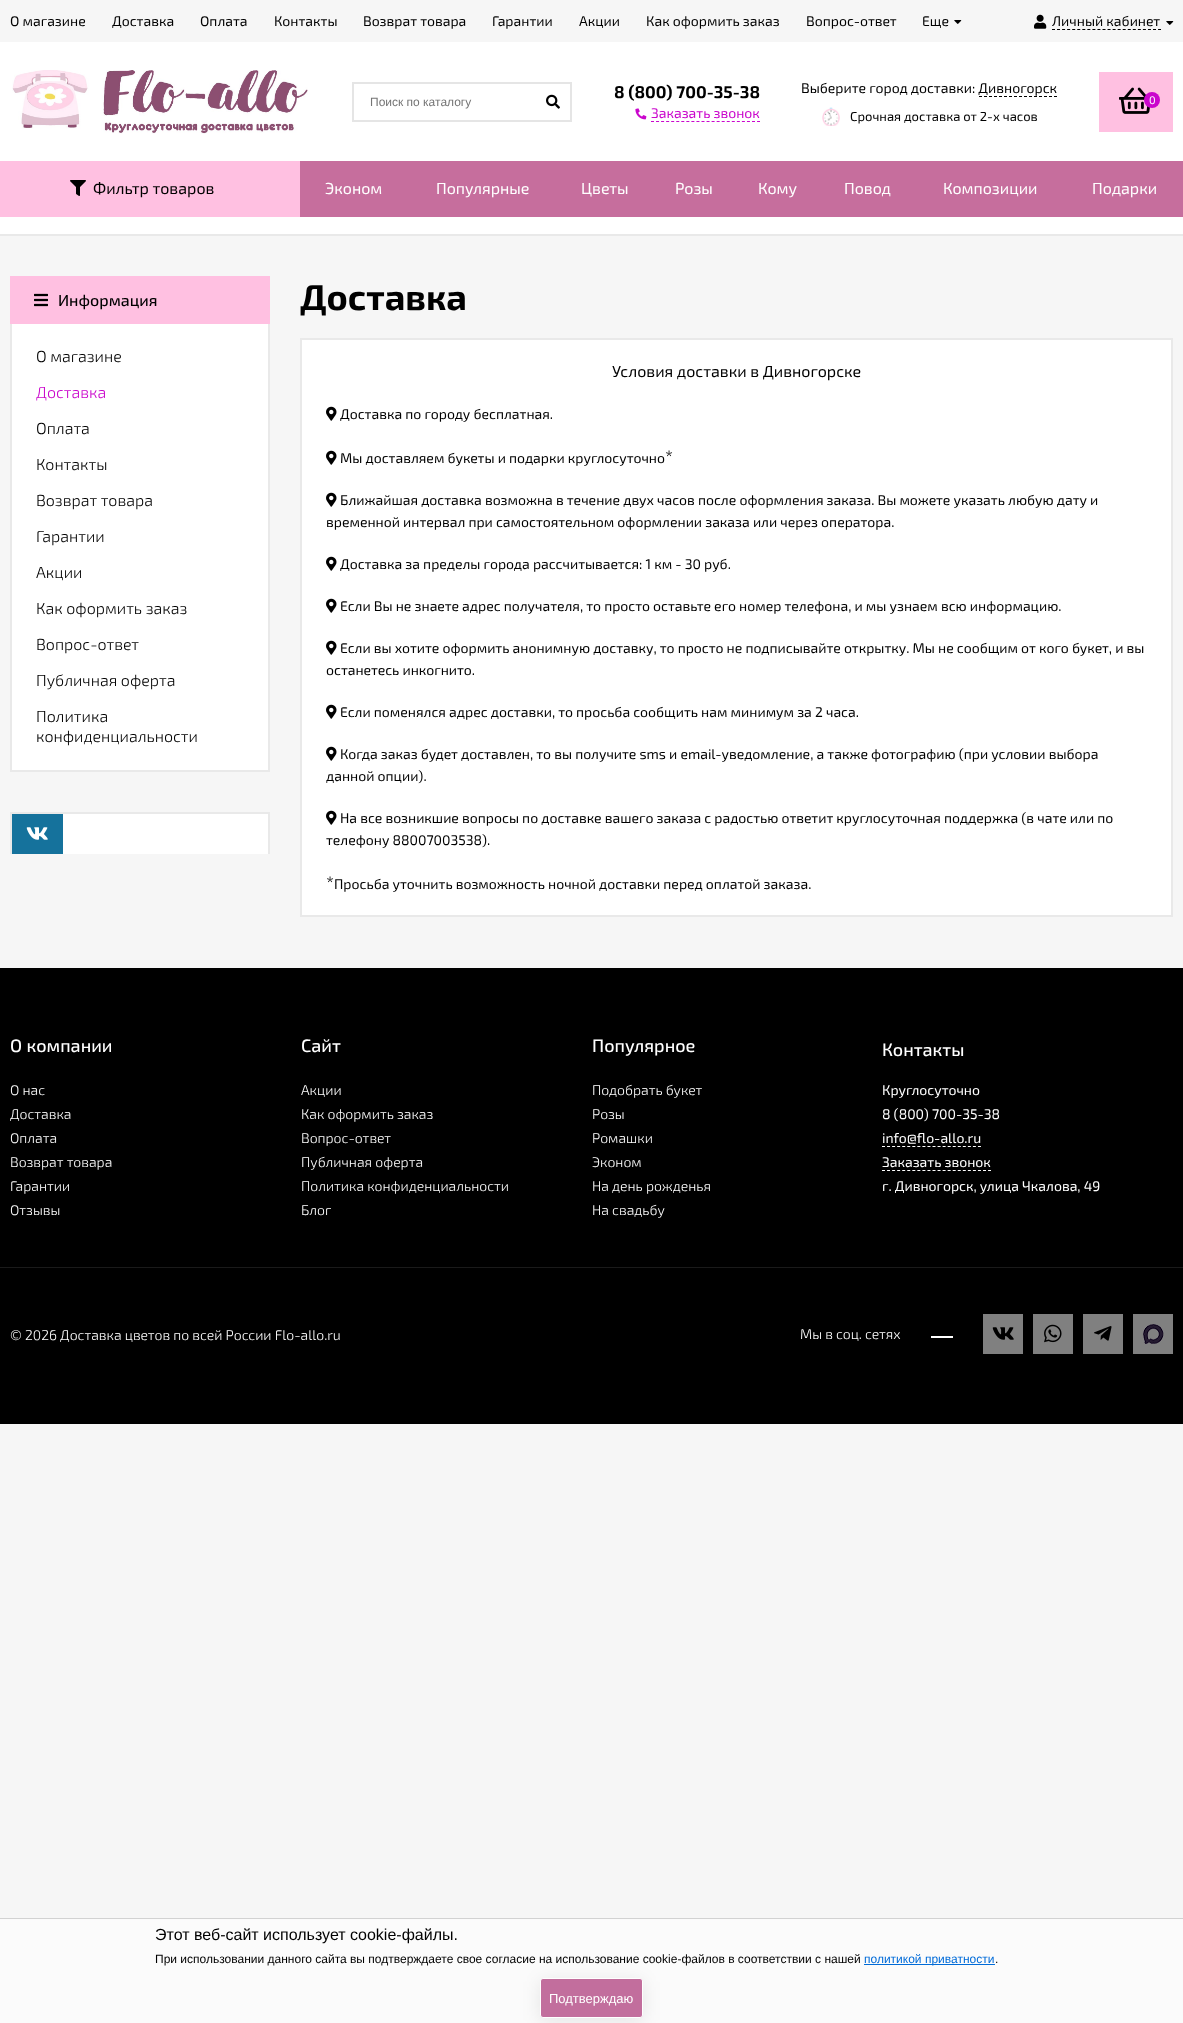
<!DOCTYPE html>
<meta charset="utf-8">
<style>body { margin: 0 } canvas { display: block }</style>
<canvas id="canvas" width="1183" height="2023"></canvas>
<img id="img1" src="img_01.png" hidden>
<img id="img2" src="img_02.png" hidden>
<img id="img3" src="img_03.png" hidden>
<img id="img4" src="img_04.png" hidden>
<img id="img5" src="img_05.png" hidden>
<img id="img6" src="img_06.png" hidden>
<img id="img7" src="img_07.png" hidden>
<img id="img8" src="img_08.png" hidden>
<img id="img9" src="img_09.png" hidden>
<img id="img10" src="img_10.png" hidden>
<img id="img11" src="img_11.png" hidden>
<img id="img12" src="img_12.png" hidden>
<img id="img13" src="img_13.png" hidden>
<img id="img14" src="img_14.png" hidden>
<img id="img15" src="img_15.png" hidden>
<script>
window.onload = function () {
	const canvas = document.getElementById("canvas");
	const ctx = canvas.getContext("2d");
	ctx.miterLimit = 4;
	ctx.fontKerning = "normal";
	function txt(s, x, y) {
		ctx.fillText(s, x, y);
	}
	function fill(x, y, w, h) {
		ctx.fillRect(x, y, w, h);
	}
	function img(id, x, y, w, h) {
		ctx.drawImage(document.getElementById(id), x, y, w, h);
	}

	ctx.fillStyle = "#F6F6F6";
	fill(0, 0, 1183, 2023);
	img("img1", 954, 20, 8, 4);
	img("img2", 1034, 14, 13, 15);
	ctx.beginPath();
	ctx.moveTo(1052, 29.5);
	ctx.lineTo(1161, 29.5);
	ctx.strokeStyle = "#000000";
	ctx.setLineDash([3, 2.05]);
	ctx.stroke();
	img("img1", 1166, 21, 8, 4);
	ctx.fillStyle = "#FFFFFF";
	fill(0, 42, 1183, 119);
	img("img3", 12, 70, 296, 64);
	ctx.strokeStyle = "#E5E5E5";
	ctx.lineWidth = 2;
	ctx.setLineDash([]);
	ctx.strokeRect(353, 83, 218, 38);
	img("img4", 546, 94, 14, 15);
	img("img5", 635, 108, 12, 12);
	ctx.beginPath();
	ctx.moveTo(651, 121.5);
	ctx.lineTo(760, 121.5);
	ctx.strokeStyle = "#CA06CC";
	ctx.lineWidth = 1;
	ctx.setLineDash([3, 2.05]);
	ctx.stroke();
	ctx.beginPath();
	ctx.moveTo(979, 96.5);
	ctx.lineTo(1057, 96.5);
	ctx.strokeStyle = "#000000";
	ctx.setLineDash([3, 2]);
	ctx.stroke();
	img("img6", 822, 107, 18, 19);
	ctx.fillStyle = "#FFC0E1";
	fill(1099, 72, 74, 60);
	img("img7", 1119, 87, 31, 27);
	ctx.fillStyle = "#CA06CC";
	ctx.beginPath();
	ctx.arc(1152, 100, 8, 0, Math.PI * 2);
	ctx.fill();
	ctx.fillStyle = "#FFFFFF";
	fill(0, 217, 1183, 17);
	ctx.fillStyle = "#C66E9D";
	fill(300, 161, 883, 56);
	ctx.fillStyle = "#FFC0E1";
	fill(0, 161, 300, 56);
	img("img8", 70, 180, 16, 16);
	ctx.fillStyle = "#E9E9E9";
	fill(0, 234, 1183, 2);
	ctx.fillStyle = "#FFC0E1";
	fill(10, 276, 260, 48);
	img("img9", 34, 293, 14, 14);
	ctx.fillStyle = "#FFFFFF";
	fill(12, 324, 256, 446);
	ctx.fillStyle = "#E9E9E9";
	fill(268, 324, 2, 448);
	fill(10, 770, 260, 2);
	fill(10, 324, 2, 448);
	ctx.fillStyle = "#FFFFFF";
	fill(63, 814, 205, 40);
	ctx.fillStyle = "#E9E9E9";
	fill(10, 812, 260, 2);
	fill(268, 812, 2, 42);
	fill(10, 812, 2, 42);
	ctx.fillStyle = "#15729C";
	fill(12, 814, 51, 40);
	img("img10", 26, 827, 22, 13);
	ctx.fillStyle = "#FFFFFF";
	ctx.beginPath();
	ctx.rect(301, 339, 871, 577);
	ctx.fill();
	ctx.strokeStyle = "#E9E9E9";
	ctx.lineWidth = 2;
	ctx.setLineDash([]);
	ctx.stroke();
	img("img11", 326, 406, 11, 15);
	img("img11", 326, 450, 11, 15);
	img("img11", 326, 492, 11, 15);
	img("img11", 326, 556, 11, 15);
	img("img11", 326, 598, 11, 15);
	img("img11", 326, 640, 11, 15);
	img("img11", 326, 704, 11, 15);
	img("img11", 326, 746, 11, 15);
	img("img11", 326, 810, 11, 15);
	ctx.fillStyle = "#000000";
	fill(0, 968, 1183, 456);
	ctx.beginPath();
	ctx.moveTo(882, 1146.5);
	ctx.lineTo(981, 1146.5);
	ctx.strokeStyle = "#FFFFFF";
	ctx.lineWidth = 1;
	ctx.setLineDash([3, 2.05]);
	ctx.stroke();
	ctx.beginPath();
	ctx.moveTo(882, 1170.5);
	ctx.lineTo(991, 1170.5);
	ctx.stroke();
	ctx.fillStyle = "#1A1A1A";
	fill(0, 1267, 1183, 1);
	ctx.fillStyle = "#FFFFFF";
	fill(931, 1336, 22, 2);
	ctx.fillStyle = "#808080";
	fill(983, 1314, 40, 40);
	img("img12", 992, 1327, 22, 13);
	fill(1033, 1314, 40, 40);
	img("img13", 1044, 1324, 18, 19);
	fill(1083, 1314, 40, 40);
	img("img14", 1094, 1326, 18, 15);
	fill(1133, 1314, 40, 40);
	img("img15", 1143, 1324, 21, 20);
	ctx.fillStyle = "#FBFBFB";
	fill(0, 1919, 1183, 104);
	ctx.fillStyle = "#D2D2D2";
	fill(0, 1918, 1183, 1);
	ctx.fillStyle = "#006BD8";
	fill(864, 1964, 131, 1);
	ctx.fillStyle = "rgba(0, 0, 0, 0.09)";
	ctx.filter = "blur(9px)";
	ctx.beginPath();
	ctx.roundRect(540, 1981, 103, 40, 3);
	ctx.fill();
	ctx.filter = "none";
	ctx.fillStyle = "#C26E9D";
	ctx.beginPath();
	ctx.roundRect(540.5, 1978.5, 102, 39, 2.5);
	ctx.fill();
	ctx.setLineDash([]);
	ctx.stroke();
	ctx.font = "14px 'Exo 2'";
	ctx.fillStyle = "#000000";
	txt("О магазине", 10, 26);
	txt("Доставка", 112, 26);
	txt("Оплата", 200, 26);
	txt("Контакты", 274, 26);
	txt("Возврат товара", 363, 26);
	txt("Гарантии", 492, 26);
	txt("Акции", 579, 26);
	txt("Как оформить заказ", 646, 26);
	txt("Вопрос-ответ", 806, 26);
	txt("Еще", 922, 26);
	txt("Личный кабинет", 1052, 26);
	ctx.font = "12px Liberation Sans";
	ctx.fillStyle = "#757575";
	txt("Поиск по каталогу", 370, 106);
	ctx.font = "bold 17px 'Exo 2'";
	ctx.fillStyle = "#000000";
	txt("8 (800) 700-35-38", 614, 98);
	ctx.font = "14px 'Exo 2'";
	ctx.fillStyle = "#CA06CC";
	txt("Заказать звонок", 651, 118);
	ctx.fillStyle = "#000000";
	txt("Выберите город доставки: Дивногорск", 801, 93);
	ctx.font = "13px 'Exo 2'";
	txt("Срочная доставка от 2-х часов", 850, 121);
	ctx.font = "11px 'Exo 2'";
	ctx.fillStyle = "#FFFFFF";
	txt("0", 1149, 104);
	ctx.font = "16px 'Exo 2'";
	ctx.fillStyle = "#000000";
	txt("Фильтр товаров", 93, 194);
	ctx.fillStyle = "#FFFFFF";
	txt("Эконом", 325, 194);
	txt("Популярные", 436, 194);
	txt("Цветы", 581, 194);
	txt("Розы", 675, 194);
	txt("Кому", 758, 194);
	txt("Повод", 844, 194);
	txt("Композиции", 943, 194);
	txt("Подарки", 1092, 194);
	ctx.font = "500 16px 'Exo 2'";
	ctx.fillStyle = "#000000";
	txt("Информация", 58, 306);
	ctx.font = "300 16px 'Exo 2'";
	txt("О магазине", 36, 362);
	ctx.fillStyle = "#CA06CC";
	txt("Доставка", 36, 398);
	ctx.fillStyle = "#000000";
	txt("Оплата", 36, 434);
	txt("Контакты", 36, 470);
	txt("Возврат товара", 36, 506);
	txt("Гарантии", 36, 542);
	txt("Акции", 36, 578);
	txt("Как оформить заказ", 36, 614);
	txt("Вопрос-ответ", 36, 650);
	txt("Публичная оферта", 36, 686);
	txt("Политика", 36, 722);
	txt("конфиденциальности", 36, 742);
	ctx.font = "bold 36px 'Exo 2'";
	txt("Доставка", 300, 310);
	ctx.font = "16px 'Exo 2'";
	txt("Условия доставки в Дивногорске", 612, 377);
	ctx.font = "14px 'Exo 2'";
	txt("Доставка по городу бесплатная.", 340, 419);
	txt("Мы доставляем букеты и подарки круглосуточно", 340, 463);
	ctx.font = "18px 'Exo 2'";
	txt("*", 665, 463);
	ctx.font = "14px 'Exo 2'";
	txt("Ближайшая доставка возможна в течение двух часов после оформления заказа. Вы можете указать любую дату и", 340, 505);
	txt("временной интервал при самостоятельном оформлении заказа или через оператора.", 326, 527);
	txt("Доставка за пределы города рассчитывается: 1 км - 30 руб.", 340, 569);
	txt("Если Вы не знаете адрес получателя, то просто оставьте его номер телефона, и мы узнаем всю информацию.", 340, 611);
	txt("Если вы хотите оформить анонимную доставку, то просто не подписывайте открытку. Мы не сообщим от кого букет, и вы", 340, 653);
	txt("останетесь инкогнито.", 326, 675);
	txt("Если поменялся адрес доставки, то просьба сообщить нам минимум за 2 часа.", 340, 717);
	txt("Когда заказ будет доставлен, то вы получите sms и email-уведомление, а также фотографию (при условии выбора", 340, 759);
	txt("данной опции).", 326, 781);
	txt("На все возникшие вопросы по доставке вашего заказа с радостью ответит круглосуточная поддержка (в чате или по", 340, 823);
	txt("телефону 88007003538).", 326, 845);
	ctx.font = "18px 'Exo 2'";
	txt("*", 326, 889);
	ctx.font = "14px 'Exo 2'";
	txt("Просьба уточнить возможность ночной доставки перед оплатой заказа.", 334, 889);
	ctx.font = "500 18px 'Exo 2'";
	ctx.fillStyle = "#FFFFFF";
	txt("О компании", 10, 1052);
	ctx.font = "300 14px 'Exo 2'";
	txt("О нас", 10, 1095);
	txt("Доставка", 10, 1119);
	txt("Оплата", 10, 1143);
	txt("Возврат товара", 10, 1167);
	txt("Гарантии", 10, 1191);
	txt("Отзывы", 10, 1215);
	ctx.font = "500 18px 'Exo 2'";
	txt("Сайт", 301, 1052);
	ctx.font = "300 14px 'Exo 2'";
	txt("Акции", 301, 1095);
	txt("Как оформить заказ", 301, 1119);
	txt("Вопрос-ответ", 301, 1143);
	txt("Публичная оферта", 301, 1167);
	txt("Политика конфиденциальности", 301, 1191);
	txt("Блог", 301, 1215);
	ctx.font = "500 18px 'Exo 2'";
	txt("Популярное", 592, 1052);
	ctx.font = "300 14px 'Exo 2'";
	txt("Подобрать букет", 592, 1095);
	txt("Розы", 592, 1119);
	txt("Ромашки", 592, 1143);
	txt("Эконом", 592, 1167);
	txt("На день рожденья", 592, 1191);
	txt("На свадьбу", 592, 1215);
	ctx.font = "500 18px 'Exo 2'";
	txt("Контакты", 882, 1056);
	ctx.font = "14px 'Exo 2'";
	txt("Круглосуточно", 882, 1095);
	txt("8 (800) 700-35-38", 882, 1119);
	txt("info@flo-allo.ru", 882, 1143);
	txt("Заказать звонок", 882, 1167);
	txt("г. Дивногорск, улица Чкалова, 49", 882, 1191);
	ctx.font = "300 14px 'Exo 2'";
	txt("© 2026 Доставка цветов по всей России Flo-allo.ru", 10, 1340);
	txt("Мы в соц. сетях", 800, 1339);
	ctx.font = "16px Liberation Sans";
	ctx.fillStyle = "#000000";
	txt("Этот веб-сайт использует cookie-файлы.", 155, 1940);
	ctx.font = "12px Liberation Sans";
	txt("При использовании данного сайта вы подтверждаете свое согласие на использование cookie-файлов в соответствии с нашей", 155, 1963);
	ctx.fillStyle = "#006BD8";
	txt("политикой приватности", 864, 1963);
	ctx.fillStyle = "#000000";
	txt(".", 995, 1963);
	ctx.font = "13px Liberation Sans";
	ctx.fillStyle = "#FFFFFF";
	txt("Подтверждаю", 549, 2003);
};
</script>
